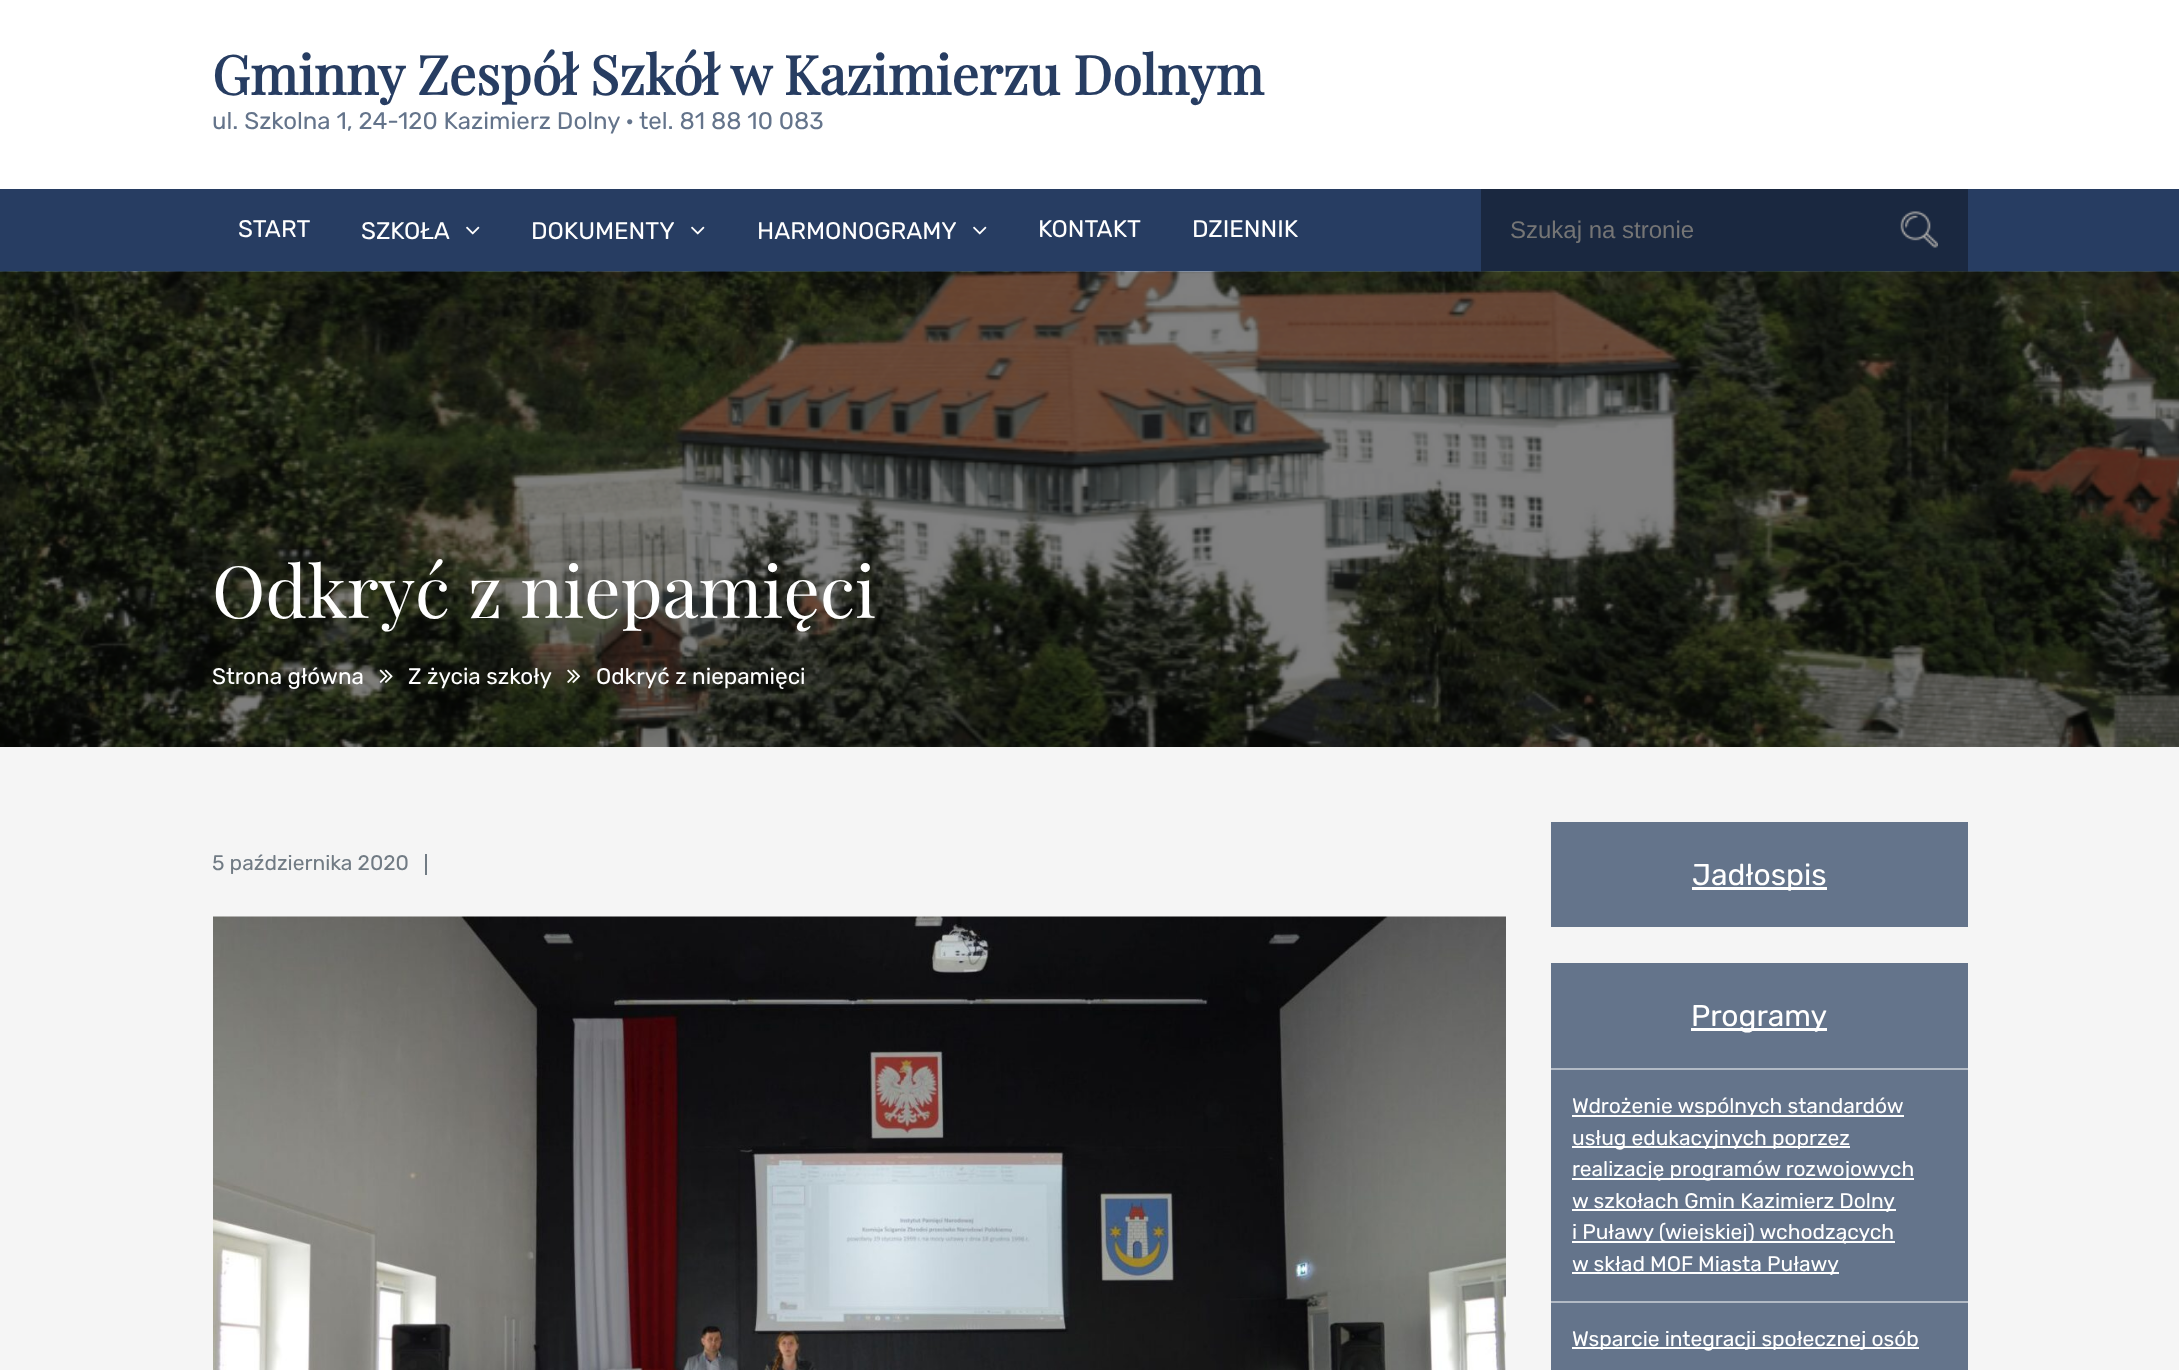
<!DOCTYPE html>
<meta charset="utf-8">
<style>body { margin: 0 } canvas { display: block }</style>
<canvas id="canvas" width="2179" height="1370"></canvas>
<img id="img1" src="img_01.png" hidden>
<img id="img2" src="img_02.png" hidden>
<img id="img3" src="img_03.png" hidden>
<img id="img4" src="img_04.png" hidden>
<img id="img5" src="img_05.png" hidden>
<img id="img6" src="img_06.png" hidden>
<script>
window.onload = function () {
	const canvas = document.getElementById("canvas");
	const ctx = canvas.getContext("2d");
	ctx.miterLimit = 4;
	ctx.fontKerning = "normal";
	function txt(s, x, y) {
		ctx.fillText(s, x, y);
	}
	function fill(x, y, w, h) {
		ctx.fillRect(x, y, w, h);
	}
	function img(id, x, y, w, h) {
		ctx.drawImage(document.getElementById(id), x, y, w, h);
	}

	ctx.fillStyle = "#F5F5F5";
	fill(0, 0, 2179, 1370);
	ctx.fillStyle = "#FFFFFF";
	fill(0, 0, 2179, 189);
	ctx.fillStyle = "#273D62";
	fill(0, 189, 2179, 83);
	img("img1", 466, 226, 14, 9);
	img("img1", 691, 226, 14, 9);
	img("img1", 973, 226, 14, 9);
	ctx.fillStyle = "#1A2840";
	fill(1481, 189, 487, 83);
	img("img2", 1900, 211, 38, 37);
	img("img3", 0, 271, 2179, 476);
	img("img4", 379, 669, 14, 14);
	img("img5", 567, 669, 14, 14);
	ctx.fillStyle = "#717B84";
	fill(425, 854, 2, 21);
	img("img6", 213, 916, 1293, 454);
	ctx.fillStyle = "#64748B";
	fill(1551, 822, 417, 105);
	ctx.fillStyle = "#FFFFFF";
	fill(1692, 887, 135, 3);
	ctx.fillStyle = "#64748B";
	fill(1551, 963, 417, 407);
	ctx.fillStyle = "#FFFFFF";
	fill(1691, 1028, 136, 3);
	ctx.fillStyle = "#B2BAC5";
	fill(1551, 1068, 417, 2);
	ctx.fillStyle = "#FFFFFF";
	fill(1572, 1115, 332, 2);
	fill(1572, 1146, 278, 2);
	fill(1572, 1178, 342, 2);
	fill(1572, 1209, 324, 2);
	fill(1572, 1241, 323, 2);
	fill(1572, 1272, 267, 2);
	ctx.fillStyle = "#B2BAC5";
	fill(1551, 1301, 417, 2);
	ctx.fillStyle = "#FFFFFF";
	fill(1572, 1347, 347, 2);
	ctx.font = "bold 54px Playfair Display";
	ctx.fillStyle = "#273D62";
	txt("Gminny Zespół Szkół w Kazimierzu Dolnym", 212, 95);
	ctx.font = "300 24px Rubik";
	ctx.fillStyle = "#64748B";
	txt("ul. Szkolna 1, 24-120 Kazimierz Dolny · tel. 81 88 10 083", 212, 129);
	ctx.fillStyle = "#FFFFFF";
	txt("START", 238, 237);
	txt("SZKOŁA", 361, 239);
	txt("DOKUMENTY", 531, 239);
	txt("HARMONOGRAMY", 757, 239);
	txt("KONTAKT", 1038, 237);
	txt("DZIENNIK", 1192, 237);
	ctx.font = "24px Liberation Sans";
	ctx.fillStyle = "#757575";
	txt("Szukaj na stronie", 1510, 238);
	ctx.font = "72px Playfair Display";
	ctx.fillStyle = "#FFFFFF";
	txt("Odkryć z niepamięci", 212, 618);
	ctx.font = "300 22.5px Rubik";
	txt("Strona główna", 212, 684);
	txt("Z życia szkoły", 408, 684);
	txt("Odkryć z niepamięci", 596, 684);
	ctx.font = "300 21px Rubik";
	ctx.fillStyle = "#717B84";
	txt("5 października 2020", 212, 870);
	ctx.font = "300 30px Rubik";
	ctx.fillStyle = "#FFFFFF";
	txt("Jadłospis", 1692, 885);
	txt("Programy", 1691, 1026);
	ctx.font = "300 21px Rubik";
	txt("Wdrożenie wspólnych standardów", 1572, 1113);
	txt("usług edukacyjnych poprzez", 1572, 1145);
	txt("realizację programów rozwojowych", 1572, 1176);
	txt("w szkołach Gmin Kazimierz Dolny", 1572, 1208);
	txt("i Puławy (wiejskiej) wchodzących", 1572, 1239);
	txt("w skład MOF Miasta Puławy", 1572, 1271);
	txt("Wsparcie integracji społecznej osób", 1572, 1346);
};
</script>
